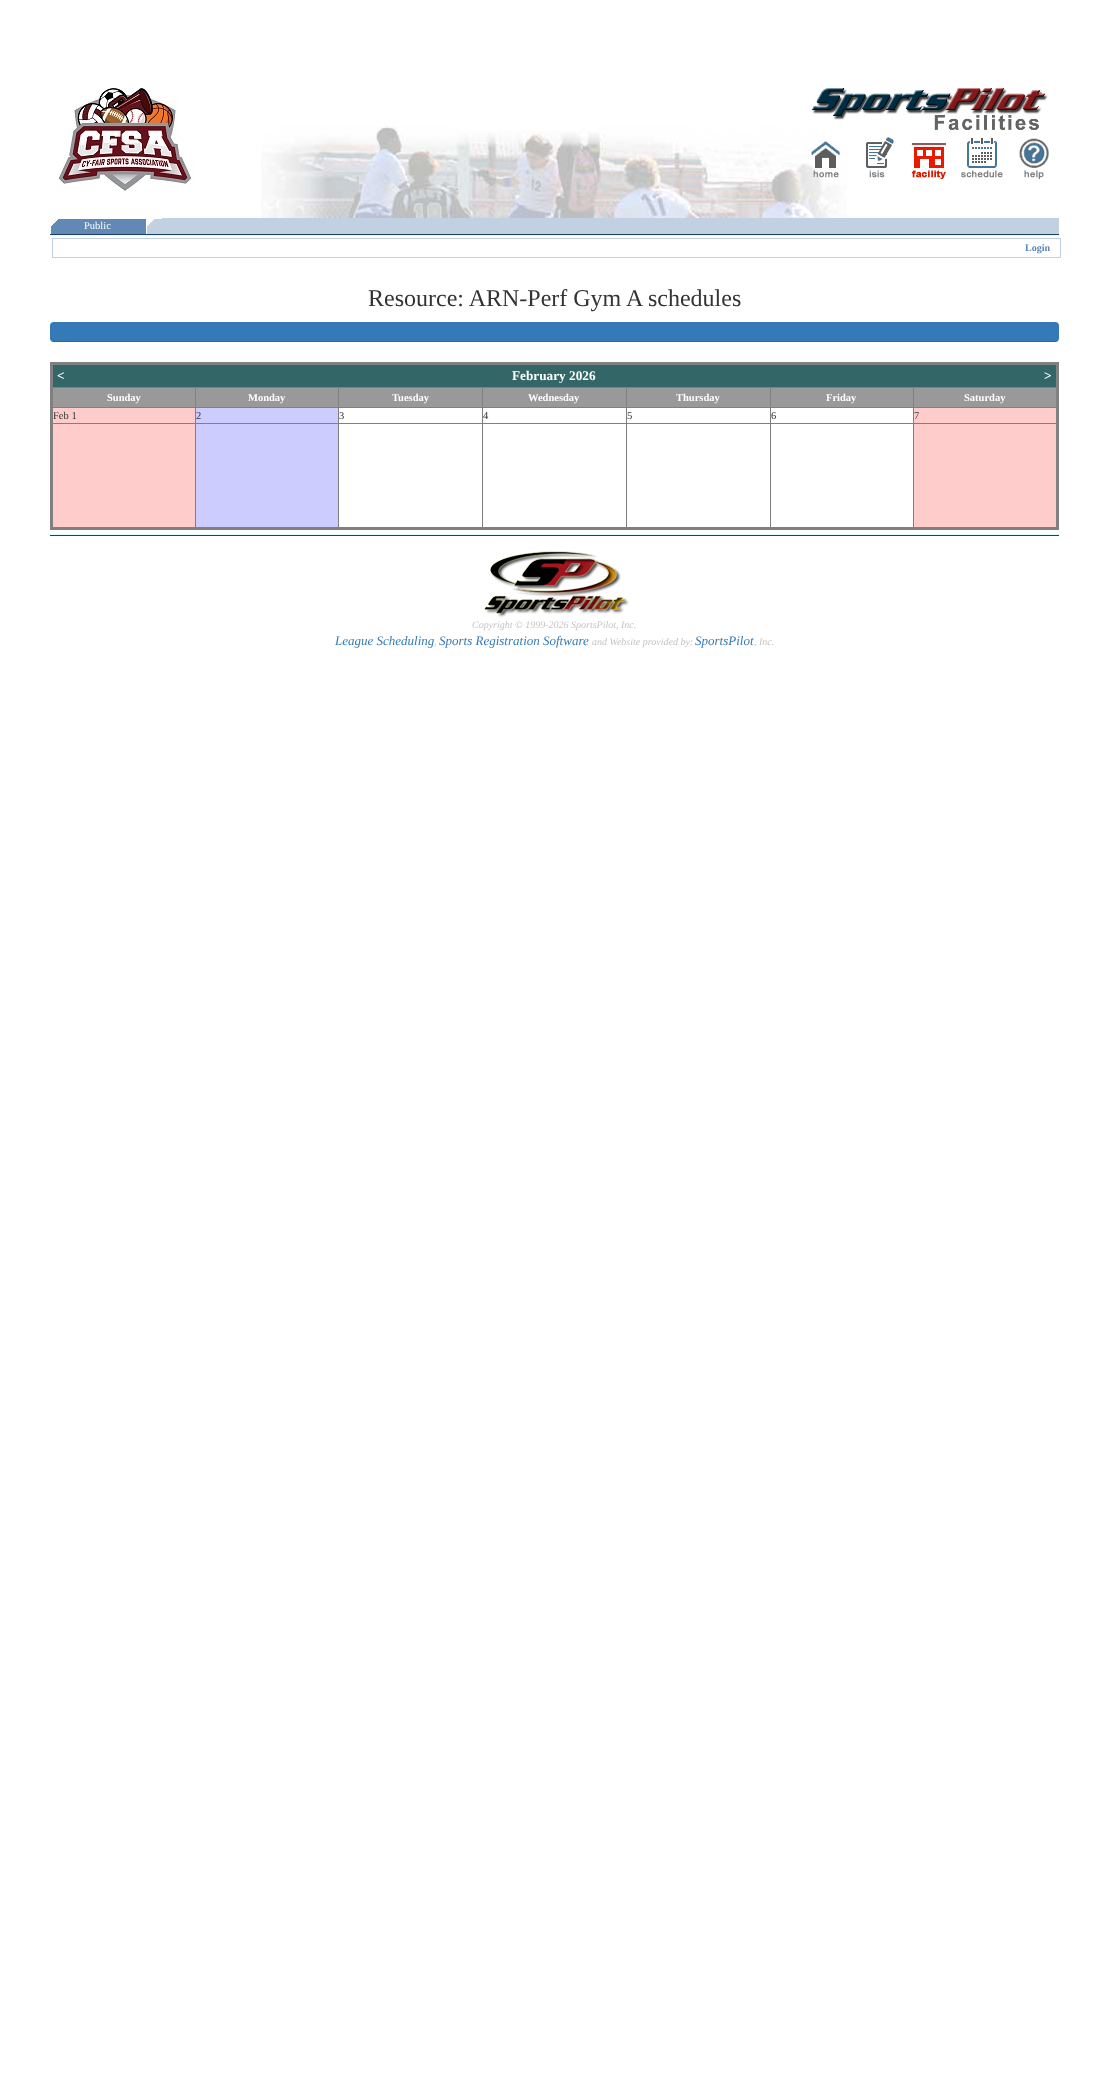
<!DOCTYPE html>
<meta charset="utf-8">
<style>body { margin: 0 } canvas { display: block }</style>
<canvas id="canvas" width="1109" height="2081"></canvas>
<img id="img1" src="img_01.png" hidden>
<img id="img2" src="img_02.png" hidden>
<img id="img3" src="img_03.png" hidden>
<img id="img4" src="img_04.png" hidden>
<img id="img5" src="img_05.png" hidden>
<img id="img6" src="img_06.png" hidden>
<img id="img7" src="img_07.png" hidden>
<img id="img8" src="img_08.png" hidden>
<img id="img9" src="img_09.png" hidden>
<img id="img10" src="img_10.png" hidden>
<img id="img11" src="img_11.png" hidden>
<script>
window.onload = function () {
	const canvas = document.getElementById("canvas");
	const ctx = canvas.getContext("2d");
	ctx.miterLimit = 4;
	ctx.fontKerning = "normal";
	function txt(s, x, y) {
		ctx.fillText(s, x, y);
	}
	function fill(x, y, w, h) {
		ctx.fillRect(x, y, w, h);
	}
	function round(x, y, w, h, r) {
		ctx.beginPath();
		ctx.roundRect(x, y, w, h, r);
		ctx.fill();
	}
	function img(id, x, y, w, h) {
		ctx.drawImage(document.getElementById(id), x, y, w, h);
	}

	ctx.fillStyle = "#FFFFFF";
	fill(0, 0, 1109, 2081);
	img("img1", 261, 126, 586, 92);
	ctx.fillStyle = "#DEFFFF";
	fill(50, 235, 1010, 1);
	img("img2", 55, 86, 139, 106);
	img("img3", 812, 88, 236, 42);
	img("img4", 811, 141, 29, 37);
	img("img5", 866, 137, 28, 41);
	img("img6", 911, 143, 35, 36);
	img("img7", 961, 138, 42, 40);
	img("img8", 1019, 138, 30, 41);
	ctx.fillStyle = "#1C3F67";
	fill(50, 234, 1009, 1);
	img("img9", 51, 219, 95, 15);
	img("img10", 147, 219, 15, 15);
	ctx.fillStyle = "#C2D1E2";
	fill(162, 218, 897, 16);
	fill(52, 238, 1009, 1);
	fill(1060, 238, 1, 20);
	fill(52, 257, 1009, 1);
	fill(52, 238, 1, 20);
	ctx.fillStyle = "#337AB7";
	round(50, 322, 1009, 20, 4);
	ctx.save();
	ctx.beginPath();
	ctx.roundRect(50, 322, 1009, 20, 4);
	ctx.clip();
	ctx.fillStyle = "rgba(0, 0, 0, 0.15)";
	fill(50, 341, 1009, 1);
	ctx.restore();
	ctx.fillStyle = "#808080";
	fill(50, 362, 1009, 3);
	fill(913, 423, 1, 106);
	fill(913, 423, 145, 1);
	fill(913, 407, 1, 17);
	fill(913, 407, 145, 1);
	fill(913, 387, 1, 21);
	fill(770, 423, 1, 106);
	fill(770, 423, 144, 1);
	fill(770, 407, 1, 17);
	fill(770, 407, 144, 1);
	fill(770, 387, 1, 21);
	fill(626, 423, 1, 106);
	fill(626, 423, 145, 1);
	fill(626, 407, 1, 17);
	fill(626, 407, 145, 1);
	fill(626, 387, 1, 21);
	fill(482, 423, 1, 106);
	fill(482, 423, 145, 1);
	fill(482, 407, 1, 17);
	fill(482, 407, 145, 1);
	fill(482, 387, 1, 21);
	fill(338, 423, 1, 106);
	fill(338, 423, 145, 1);
	fill(338, 407, 1, 17);
	fill(338, 407, 145, 1);
	fill(338, 387, 1, 21);
	fill(195, 423, 1, 106);
	fill(195, 423, 144, 1);
	fill(195, 407, 1, 17);
	fill(195, 407, 144, 1);
	fill(195, 387, 1, 21);
	fill(51, 387, 1007, 1);
	fill(1056, 362, 3, 168);
	fill(50, 527, 1009, 3);
	fill(51, 407, 145, 1);
	fill(51, 423, 145, 1);
	fill(50, 362, 3, 168);
	ctx.fillStyle = "#336666";
	fill(53, 365, 1003, 22);
	ctx.fillStyle = "#999999";
	fill(53, 388, 142, 19);
	fill(196, 388, 142, 19);
	fill(339, 388, 143, 19);
	fill(483, 388, 143, 19);
	fill(627, 388, 143, 19);
	fill(771, 388, 142, 19);
	fill(914, 388, 142, 19);
	ctx.fillStyle = "#FFCCCC";
	fill(53, 408, 142, 15);
	ctx.fillStyle = "#CCCCFF";
	fill(196, 408, 142, 15);
	ctx.fillStyle = "#FFCCCC";
	fill(914, 408, 142, 15);
	fill(53, 424, 142, 103);
	ctx.fillStyle = "#CCCCFF";
	fill(196, 424, 142, 103);
	ctx.fillStyle = "#FFCCCC";
	fill(914, 424, 142, 103);
	ctx.fillStyle = "#DFFFFF";
	fill(50, 534, 1009, 1);
	ctx.fillStyle = "#1A4168";
	fill(50, 535, 1009, 1);
	img("img11", 483, 551, 146, 67);
	ctx.font = "10.5px Liberation Serif";
	ctx.fillStyle = "#FFFFFF";
	txt("Public", 84, 229);
	ctx.font = "bold 10px Liberation Serif";
	ctx.fillStyle = "#5B85B3";
	txt("Login", 1025, 251);
	ctx.font = "24px Liberation Serif";
	ctx.fillStyle = "#333333";
	txt("Resource: ARN-Perf Gym A schedules", 368, 306);
	ctx.font = "bold 13.25px Liberation Serif";
	ctx.fillStyle = "#FFFFFF";
	txt("<", 57, 380);
	txt("February 2026", 512, 380);
	txt(">", 1044, 380);
	ctx.font = "bold 10.5px Liberation Serif";
	txt("Sunday", 107, 401);
	txt("Monday", 248, 401);
	txt("Tuesday", 392, 401);
	txt("Wednesday", 528, 401);
	txt("Thursday", 676, 401);
	txt("Friday", 826, 401);
	txt("Saturday", 964, 401);
	ctx.font = "10.5px Liberation Serif";
	ctx.fillStyle = "#333333";
	txt("Feb 1", 53, 419);
	txt("2", 196, 419);
	txt("3", 339, 419);
	txt("4", 483, 419);
	txt("5", 627, 419);
	txt("6", 771, 419);
	txt("7", 914, 419);
	ctx.font = "italic 10px Liberation Serif";
	ctx.fillStyle = "#C4C4C4";
	txt("Copyright © 1999-2026 SportsPilot, Inc.", 472, 628);
	ctx.font = "italic 13px Liberation Serif";
	ctx.fillStyle = "#337AB7";
	txt("League Scheduling", 335, 645);
	ctx.font = "italic 10px Liberation Serif";
	ctx.fillStyle = "#C4C4C4";
	txt(",", 434, 645);
	ctx.font = "italic 13px Liberation Serif";
	ctx.fillStyle = "#337AB7";
	txt("Sports Registration Software", 439, 645);
	ctx.font = "italic 10px Liberation Serif";
	ctx.fillStyle = "#C4C4C4";
	txt("and Website provided by:", 592, 645);
	ctx.font = "italic 13px Liberation Serif";
	ctx.fillStyle = "#337AB7";
	txt("SportsPilot", 695, 645);
	ctx.font = "italic 10px Liberation Serif";
	ctx.fillStyle = "#C4C4C4";
	txt(", Inc.", 754, 645);
};
</script>
